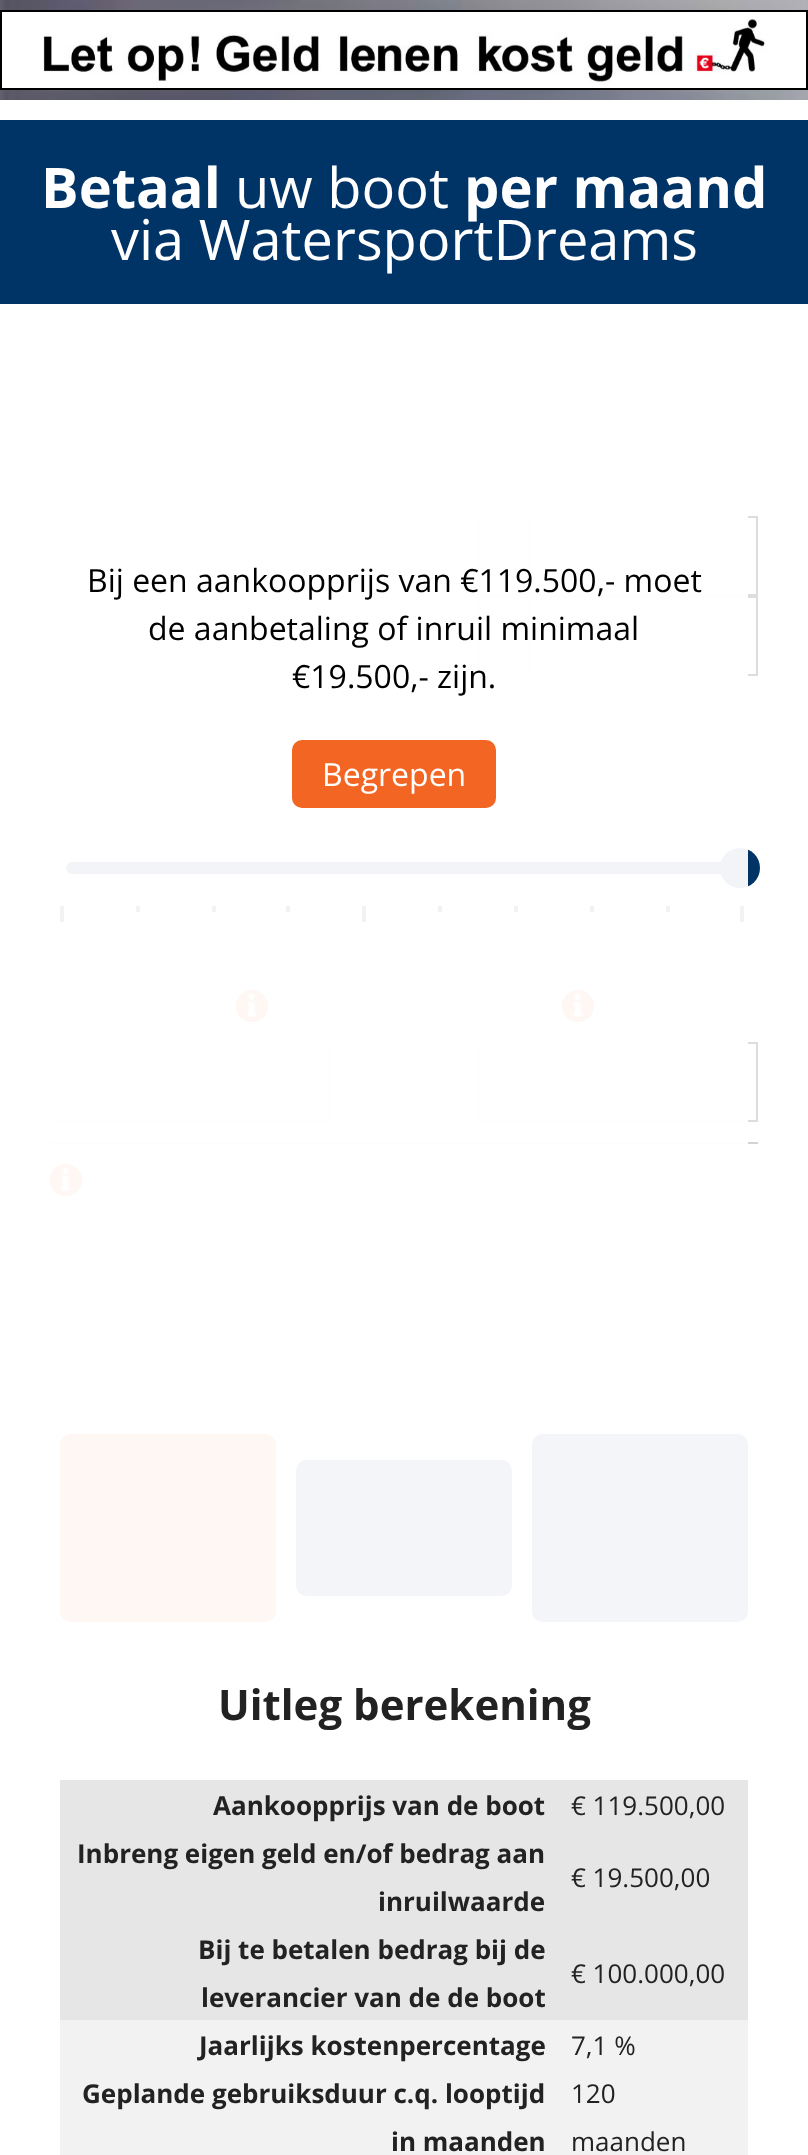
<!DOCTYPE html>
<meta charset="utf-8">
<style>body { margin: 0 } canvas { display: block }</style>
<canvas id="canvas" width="808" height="2155"></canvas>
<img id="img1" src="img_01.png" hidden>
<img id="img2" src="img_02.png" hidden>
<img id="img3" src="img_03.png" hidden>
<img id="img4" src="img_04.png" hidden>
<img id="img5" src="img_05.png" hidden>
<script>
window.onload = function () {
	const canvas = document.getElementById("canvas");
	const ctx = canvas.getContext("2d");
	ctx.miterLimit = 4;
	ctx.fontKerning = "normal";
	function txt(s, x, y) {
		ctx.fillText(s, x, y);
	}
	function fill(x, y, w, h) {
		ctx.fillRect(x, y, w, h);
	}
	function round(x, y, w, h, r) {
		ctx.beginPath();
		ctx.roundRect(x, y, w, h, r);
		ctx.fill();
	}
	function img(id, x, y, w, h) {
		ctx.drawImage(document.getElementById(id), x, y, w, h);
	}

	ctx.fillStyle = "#FFFFFF";
	fill(0, 0, 808, 2155);
	img("img1", 0, 0, 808, 100);
	fill(2, 12, 804, 76);
	img("img2", 43, 19, 723, 64);
	ctx.strokeStyle = "#000000";
	ctx.lineWidth = 2;
	ctx.strokeRect(1, 11, 806, 78);
	ctx.fillStyle = "#003366";
	fill(0, 120, 808, 184);
	ctx.strokeStyle = "#DDDDDD";
	ctx.strokeRect(479, 517, 278, 78);
	ctx.strokeRect(479, 517, 50, 78);
	ctx.strokeRect(479, 597, 278, 78);
	ctx.strokeRect(479, 597, 50, 78);
	round(66, 862, 676, 12, 6);
	ctx.beginPath();
	ctx.arc(740, 868, 20, 0, Math.PI * 2);
	ctx.fill();
	ctx.fillStyle = "#000000";
	fill(60, 906, 4, 16);
	fill(136, 906, 4, 6);
	fill(212, 906, 4, 6);
	fill(286, 906, 4, 6);
	fill(362, 906, 4, 16);
	fill(438, 906, 4, 6);
	fill(514, 906, 4, 6);
	fill(590, 906, 4, 6);
	fill(666, 906, 4, 6);
	fill(740, 906, 4, 16);
	ctx.fillStyle = "#F26522";
	ctx.beginPath();
	ctx.arc(252, 1006, 16, 0, Math.PI * 2);
	ctx.fill();
	img("img3", 247, 993, 10, 25);
	ctx.beginPath();
	ctx.arc(252, 1006, 15, 0, Math.PI * 2);
	ctx.strokeStyle = "#F26522";
	ctx.stroke();
	ctx.strokeStyle = "#DDDDDD";
	ctx.strokeRect(51, 1043, 278, 78);
	ctx.strokeRect(51, 1043, 50, 78);
	ctx.beginPath();
	ctx.arc(578, 1006, 16, 0, Math.PI * 2);
	ctx.fill();
	img("img4", 573, 993, 10, 25);
	ctx.beginPath();
	ctx.arc(578, 1006, 15, 0, Math.PI * 2);
	ctx.strokeStyle = "#F26522";
	ctx.stroke();
	ctx.strokeStyle = "#DDDDDD";
	ctx.strokeRect(479, 1043, 278, 78);
	ctx.fillStyle = "#D3D3D3";
	fill(50, 1142, 708, 2);
	ctx.fillStyle = "#F26522";
	ctx.beginPath();
	ctx.arc(66, 1180, 16, 0, Math.PI * 2);
	ctx.fill();
	img("img5", 61, 1167, 10, 25);
	ctx.beginPath();
	ctx.arc(66, 1180, 15, 0, Math.PI * 2);
	ctx.strokeStyle = "#F26522";
	ctx.stroke();
	ctx.fillStyle = "rgba(255, 255, 255, 0.95)";
	fill(50, 516, 698, 680);
	ctx.fillStyle = "#F26522";
	round(292, 740, 204, 68, 10);
	round(60, 1434, 216, 188, 10);
	ctx.fillStyle = "#254480";
	round(296, 1460, 216, 136, 10);
	round(532, 1434, 216, 188, 10);
	ctx.fillStyle = "rgba(255, 255, 255, 0.95)";
	fill(60, 1434, 688, 188);
	ctx.fillStyle = "#E6E6E6";
	fill(60, 1780, 688, 240);
	ctx.fillStyle = "#F2F2F2";
	fill(60, 2020, 688, 135);
	ctx.font = "bold 56px Open Sans";
	ctx.fillStyle = "#FFFFFF";
	txt("Betaal", 41, 208);
	ctx.font = "56px Open Sans";
	txt("uw boot", 235, 208);
	ctx.font = "bold 56px Open Sans";
	txt("per maand", 464, 208);
	ctx.font = "56px Open Sans";
	txt("via WatersportDreams", 111, 260);
	ctx.font = "32px Open Sans";
	ctx.fillStyle = "#000000";
	txt("Bij een aankoopprijs van €119.500,- moet", 87, 592);
	txt("de aanbetaling of inruil minimaal", 148, 640);
	txt("€19.500,- zijn.", 292, 688);
	ctx.fillStyle = "#FFFFFF";
	txt("Begrepen", 322, 786);
	ctx.font = "bold 42px Open Sans";
	ctx.fillStyle = "#222222";
	txt("Uitleg berekening", 218, 1720);
	ctx.font = "bold 26px Open Sans";
	txt("Aankoopprijs van de boot", 213, 1815);
	ctx.font = "26px Open Sans";
	txt("€ 119.500,00", 571, 1815);
	ctx.font = "bold 26px Open Sans";
	txt("Inbreng eigen geld en/of bedrag aan", 77, 1863);
	txt("inruilwaarde", 378, 1911);
	ctx.font = "26px Open Sans";
	txt("€ 19.500,00", 571, 1887);
	ctx.font = "bold 26px Open Sans";
	txt("Bij te betalen bedrag bij de", 198, 1959);
	txt("leverancier van de de boot", 201, 2007);
	ctx.font = "26px Open Sans";
	txt("€ 100.000,00", 571, 1983);
	ctx.font = "bold 26px Open Sans";
	txt("Jaarlijks kostenpercentage", 199, 2055);
	ctx.font = "26px Open Sans";
	txt("7,1 %", 571, 2055);
	ctx.font = "bold 26px Open Sans";
	txt("Geplande gebruiksduur c.q. looptijd", 82, 2103);
	txt("in maanden", 391, 2151);
	ctx.font = "26px Open Sans";
	txt("120", 571, 2103);
	txt("maanden", 571, 2151);
};
</script>
